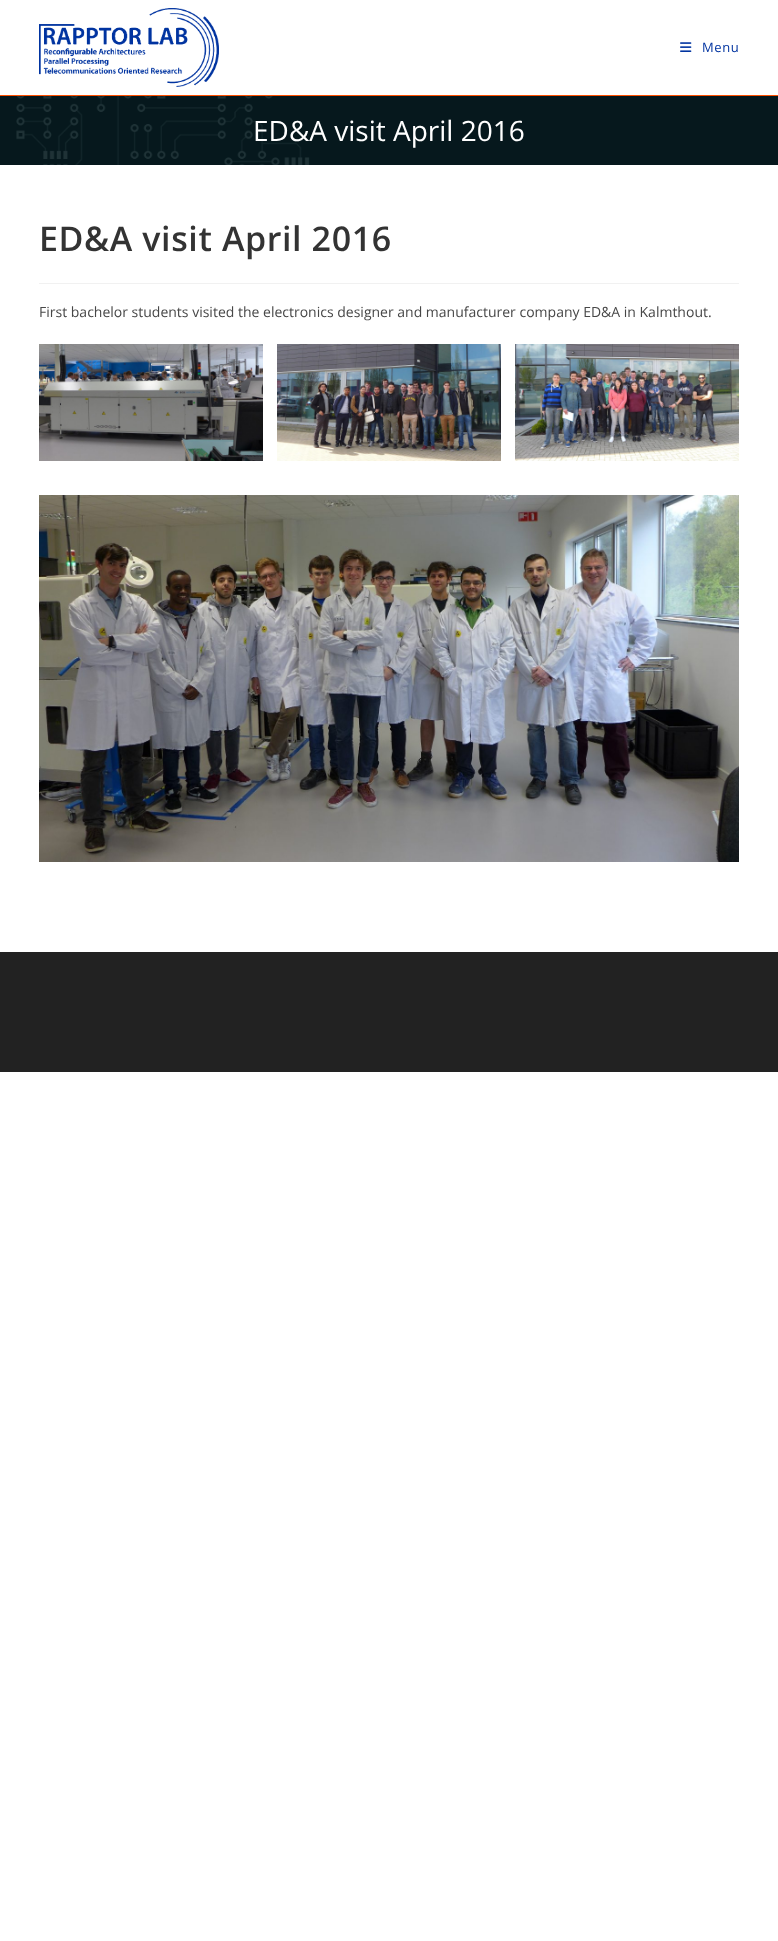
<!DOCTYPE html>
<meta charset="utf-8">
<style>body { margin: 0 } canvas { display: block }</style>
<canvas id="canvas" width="778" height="1941"></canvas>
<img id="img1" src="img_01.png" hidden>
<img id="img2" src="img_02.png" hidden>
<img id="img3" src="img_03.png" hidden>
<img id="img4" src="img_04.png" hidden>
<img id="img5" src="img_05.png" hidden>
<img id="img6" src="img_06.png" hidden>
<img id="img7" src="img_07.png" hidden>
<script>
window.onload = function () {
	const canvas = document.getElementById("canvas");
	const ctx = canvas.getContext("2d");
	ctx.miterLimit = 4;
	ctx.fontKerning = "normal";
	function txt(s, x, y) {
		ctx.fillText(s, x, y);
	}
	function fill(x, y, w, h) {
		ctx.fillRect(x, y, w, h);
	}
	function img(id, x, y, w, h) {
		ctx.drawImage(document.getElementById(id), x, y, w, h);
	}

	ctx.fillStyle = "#FFFFFF";
	fill(0, 0, 778, 1941);
	ctx.fillStyle = "#FF5000";
	fill(0, 95, 778, 1);
	img("img1", 39, 8, 180, 79);
	img("img2", 680, 42, 12, 10);
	img("img3", 0, 96, 778, 69);
	ctx.fillStyle = "#F1F1F1";
	fill(39, 283, 700, 1);
	img("img4", 39, 344, 224, 117);
	img("img5", 277, 344, 224, 117);
	img("img6", 515, 344, 224, 117);
	img("img7", 39, 495, 700, 367);
	ctx.fillStyle = "#222222";
	fill(0, 952, 778, 120);
	ctx.letterSpacing = "0.6px";
	ctx.font = "13px Open Sans";
	ctx.fillStyle = "#0033A0";
	txt("Menu", 702, 52);
	ctx.letterSpacing = "0px";
	ctx.font = "28px Open Sans";
	ctx.fillStyle = "#FFFFFF";
	txt("ED&A visit April 2016", 253, 141);
	ctx.letterSpacing = "0.6px";
	ctx.font = "600 34px Open Sans";
	ctx.fillStyle = "#333333";
	txt("ED&A visit April 2016", 39, 251);
	ctx.letterSpacing = "0px";
	ctx.font = "14px Open Sans";
	ctx.fillStyle = "#474747";
	txt("First bachelor students visited the electronics designer and manufacturer company ED&A in Kalmthout.", 39, 317);
};
</script>
